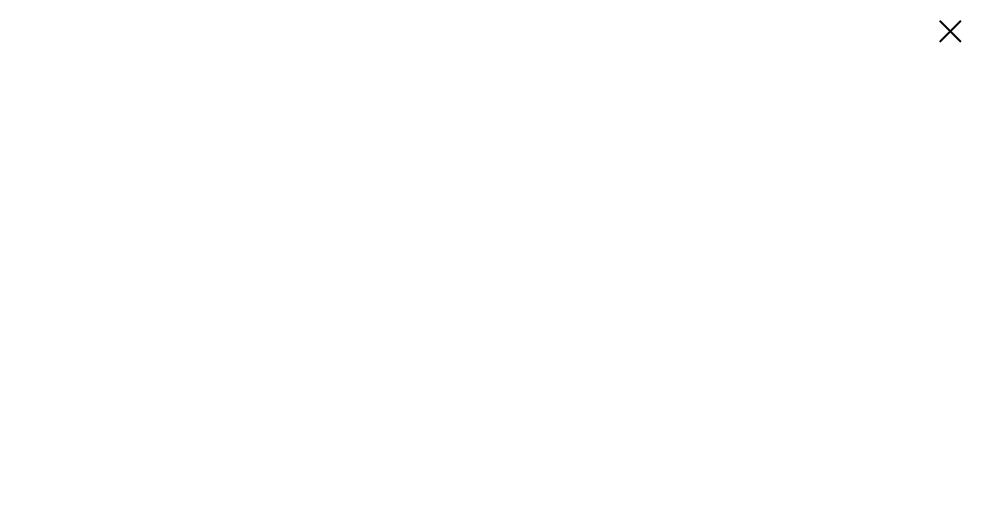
<!DOCTYPE html>
<meta charset="utf-8">
<style>body { margin: 0 } canvas { display: block }</style>
<canvas id="canvas" width="982" height="510"></canvas>
<img id="img1" src="img_01.png" hidden>
<script>
window.onload = function () {
	const canvas = document.getElementById("canvas");
	const ctx = canvas.getContext("2d");
	ctx.miterLimit = 4;
	ctx.fontKerning = "normal";
	function fill(x, y, w, h) {
		ctx.fillRect(x, y, w, h);
	}
	function img(id, x, y, w, h) {
		ctx.drawImage(document.getElementById(id), x, y, w, h);
	}

	ctx.fillStyle = "#FFFFFF";
	fill(0, 0, 982, 510);
	img("img1", 939, 20, 23, 23);
};
</script>
